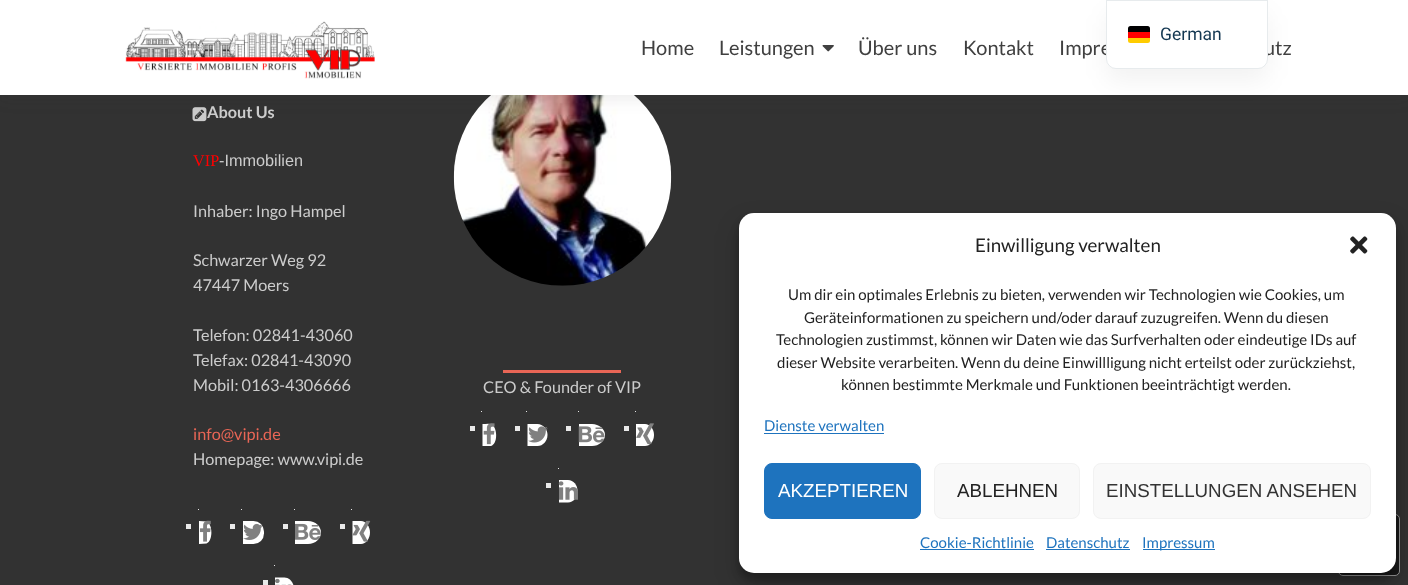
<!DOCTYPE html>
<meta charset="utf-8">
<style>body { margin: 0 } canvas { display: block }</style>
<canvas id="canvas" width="1408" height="585"></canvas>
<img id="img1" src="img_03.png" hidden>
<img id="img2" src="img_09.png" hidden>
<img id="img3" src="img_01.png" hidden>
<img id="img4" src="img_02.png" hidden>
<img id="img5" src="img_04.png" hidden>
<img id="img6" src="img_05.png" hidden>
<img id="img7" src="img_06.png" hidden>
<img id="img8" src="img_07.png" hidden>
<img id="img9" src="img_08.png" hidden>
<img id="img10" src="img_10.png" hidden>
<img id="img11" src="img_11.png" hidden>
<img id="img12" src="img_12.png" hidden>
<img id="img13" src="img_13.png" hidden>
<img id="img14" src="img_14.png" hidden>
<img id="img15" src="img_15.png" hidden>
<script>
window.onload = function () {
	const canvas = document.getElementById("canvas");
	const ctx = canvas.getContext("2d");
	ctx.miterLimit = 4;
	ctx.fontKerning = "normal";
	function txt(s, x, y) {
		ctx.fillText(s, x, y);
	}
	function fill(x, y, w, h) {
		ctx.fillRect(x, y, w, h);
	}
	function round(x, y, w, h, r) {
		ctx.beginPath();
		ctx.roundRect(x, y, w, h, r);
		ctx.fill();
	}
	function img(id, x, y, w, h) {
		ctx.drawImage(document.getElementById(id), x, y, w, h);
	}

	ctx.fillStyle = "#323232";
	fill(0, 0, 1408, 585);
	img("img1", 192, 107, 15, 15);
	img("img2", 453, 95, 219, 191);
	ctx.fillStyle = "rgba(50, 50, 50, 0.08)";
	ctx.filter = "blur(7px)";
	ctx.beginPath();
	ctx.rect(0, 6, 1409, 95);
	ctx.fill();
	ctx.filter = "none";
	ctx.fillStyle = "#FFFFFF";
	fill(0, 0, 1408, 95);
	ctx.fillStyle = "rgba(0, 0, 0, 0.05)";
	ctx.filter = "blur(12.5px)";
	ctx.beginPath();
	ctx.roundRect(1106, 13, 162, 68, 10);
	ctx.fill();
	ctx.filter = "none";
	img("img3", 125, 21, 250, 58);
	img("img4", 822, 45, 12, 7);
	ctx.fillStyle = "#E9E9E9";
	fill(186, 524, 5, 5);
	ctx.fillStyle = "#FFFFFF";
	ctx.beginPath();
	ctx.roundRect(198, 509, 1, 1, [0.5, 0, 0, 0.5]);
	ctx.fill();
	ctx.beginPath();
	ctx.moveTo(199, 521);
	ctx.lineTo(206.5, 521.5);
	ctx.bezierCurveTo(213, 524, 213, 541, 206.5, 543.5);
	ctx.lineTo(199, 544);
	ctx.closePath();
	ctx.fill();
	img("img5", 199, 520, 12, 22);
	ctx.fillStyle = "#E9E9E9";
	fill(230, 524, 5, 5);
	ctx.fillStyle = "#FFFFFF";
	ctx.beginPath();
	ctx.roundRect(241, 509, 1, 1, [0.5, 0, 0, 0.5]);
	ctx.fill();
	ctx.beginPath();
	ctx.roundRect(243, 521, 21, 23, [0, 10.5, 10.5, 0]);
	ctx.fill();
	img("img6", 243, 523, 20, 17);
	ctx.fillStyle = "#E9E9E9";
	fill(283, 524, 5, 5);
	ctx.fillStyle = "#FFFFFF";
	ctx.beginPath();
	ctx.roundRect(294, 509, 1, 1, [0.5, 0, 0, 0.5]);
	ctx.fill();
	ctx.beginPath();
	ctx.moveTo(295, 521);
	ctx.lineTo(308, 521);
	ctx.bezierCurveTo(315.5, 521, 321, 526.5, 321, 532.5);
	ctx.bezierCurveTo(321, 538.5, 315.5, 544, 308, 544);
	ctx.lineTo(295, 544);
	ctx.closePath();
	ctx.fill();
	img("img7", 295, 523, 26, 17);
	ctx.fillStyle = "#E9E9E9";
	fill(340, 524, 5, 5);
	ctx.fillStyle = "#FFFFFF";
	ctx.beginPath();
	ctx.roundRect(351, 509, 1, 1, [0.5, 0, 0, 0.5]);
	ctx.fill();
	ctx.beginPath();
	ctx.moveTo(352.5, 521);
	ctx.lineTo(361, 521);
	ctx.bezierCurveTo(366, 521, 370, 526.5, 370, 532.5);
	ctx.bezierCurveTo(370, 538.5, 366, 544, 361, 544);
	ctx.lineTo(352.5, 544);
	ctx.closePath();
	ctx.fill();
	img("img8", 352, 520, 19, 22);
	ctx.fillStyle = "#E9E9E9";
	fill(263, 580, 5, 5);
	ctx.fillStyle = "#FFFFFF";
	ctx.beginPath();
	ctx.roundRect(274, 565, 1, 1, [0.5, 0, 0, 0.5]);
	ctx.fill();
	ctx.beginPath();
	ctx.moveTo(275, 577.5);
	ctx.lineTo(284.5, 577.5);
	ctx.bezierCurveTo(289.5, 577.5, 294, 582.5, 294, 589);
	ctx.bezierCurveTo(294, 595, 289.5, 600, 284.5, 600);
	ctx.lineTo(275, 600);
	ctx.closePath();
	ctx.fill();
	img("img9", 275, 578, 17, 7);
	ctx.fillStyle = "#E96656";
	fill(503, 370, 118, 3);
	ctx.fillStyle = "#E9E9E9";
	fill(470, 426, 5, 5);
	ctx.fillStyle = "#FFFFFF";
	ctx.beginPath();
	ctx.roundRect(481, 411, 1, 1, [0.5, 0, 0, 0.5]);
	ctx.fill();
	ctx.beginPath();
	ctx.moveTo(482.5, 424);
	ctx.bezierCurveTo(485.5, 424, 489.5, 423, 492, 424.5);
	ctx.bezierCurveTo(497.5, 428.5, 498, 443.5, 491, 446);
	ctx.lineTo(482.5, 446);
	ctx.closePath();
	ctx.fill();
	img("img10", 483, 423, 12, 22);
	ctx.fillStyle = "#E9E9E9";
	fill(515, 426, 5, 5);
	ctx.fillStyle = "#FFFFFF";
	ctx.beginPath();
	ctx.roundRect(526, 411, 1, 1, [0.5, 0, 0, 0.5]);
	ctx.fill();
	ctx.beginPath();
	ctx.moveTo(527.5, 424);
	ctx.lineTo(537.5, 424);
	ctx.bezierCurveTo(543, 424, 547.5, 429, 547.5, 435);
	ctx.bezierCurveTo(547.5, 441, 543, 446, 537.5, 446);
	ctx.lineTo(527.5, 446);
	ctx.closePath();
	ctx.fill();
	img("img11", 528, 426, 20, 17);
	ctx.fillStyle = "#E9E9E9";
	fill(566, 426, 5, 5);
	ctx.fillStyle = "#FFFFFF";
	ctx.beginPath();
	ctx.roundRect(578, 411, 1, 1, [0.5, 0, 0, 0.5]);
	ctx.fill();
	ctx.beginPath();
	ctx.moveTo(579, 424);
	ctx.lineTo(592, 424);
	ctx.bezierCurveTo(599, 424, 605, 429, 605, 435);
	ctx.bezierCurveTo(605, 441, 599, 446, 592, 446);
	ctx.lineTo(579, 446);
	ctx.closePath();
	ctx.fill();
	img("img12", 578, 426, 27, 17);
	ctx.fillStyle = "#E9E9E9";
	fill(624, 426, 5, 5);
	ctx.fillStyle = "#FFFFFF";
	ctx.beginPath();
	ctx.roundRect(635, 411, 1, 1, [0.5, 0, 0, 0.5]);
	ctx.fill();
	ctx.beginPath();
	ctx.moveTo(636, 424);
	ctx.lineTo(645, 424);
	ctx.bezierCurveTo(650, 424, 654, 429, 654, 435);
	ctx.bezierCurveTo(654, 441, 650, 446, 645, 446);
	ctx.lineTo(636, 446);
	ctx.closePath();
	ctx.fill();
	img("img13", 636, 423, 18, 22);
	ctx.fillStyle = "#E9E9E9";
	fill(546, 483, 5, 5);
	ctx.fillStyle = "#FFFFFF";
	ctx.beginPath();
	ctx.roundRect(558, 468, 1, 1, [0.5, 0, 0, 0.5]);
	ctx.fill();
	ctx.beginPath();
	ctx.moveTo(559, 480);
	ctx.lineTo(568, 480);
	ctx.bezierCurveTo(573.5, 480, 577.5, 485, 577.5, 491);
	ctx.bezierCurveTo(577.5, 497.5, 573.5, 502.5, 568, 502.5);
	ctx.lineTo(559, 502.5);
	ctx.closePath();
	ctx.fill();
	img("img14", 558, 481, 20, 19);
	ctx.fillStyle = "#191919";
	ctx.beginPath();
	ctx.roundRect(1338.5, 514.5, 61, 61, 4.5);
	ctx.fill();
	ctx.strokeStyle = "#999999";
	ctx.stroke();
	ctx.fillStyle = "rgba(0, 0, 0, 0.23)";
	ctx.filter = "blur(4px)";
	ctx.beginPath();
	ctx.roundRect(739, 220, 657, 360, 15);
	ctx.fill();
	ctx.filter = "none";
	ctx.fillStyle = "rgba(0, 0, 0, 0.19)";
	ctx.filter = "blur(12.5px)";
	ctx.beginPath();
	ctx.roundRect(739, 225, 657, 360, 15);
	ctx.fill();
	ctx.filter = "none";
	ctx.fillStyle = "#FFFFFF";
	round(739, 213, 657, 360, 15);
	img("img15", 1350, 236, 18, 18);
	ctx.fillStyle = "#1E73BE";
	fill(764, 433, 120, 1);
	ctx.beginPath();
	ctx.roundRect(764.5, 463.5, 156, 55, 7.5);
	ctx.fill();
	ctx.strokeStyle = "#1E73BE";
	ctx.stroke();
	ctx.fillStyle = "#F9F9F9";
	ctx.beginPath();
	ctx.roundRect(934.5, 463.5, 145, 55, 7.5);
	ctx.fill();
	ctx.strokeStyle = "#F2F2F2";
	ctx.stroke();
	ctx.beginPath();
	ctx.roundRect(1093.5, 463.5, 277, 55, 7.5);
	ctx.fill();
	ctx.stroke();
	ctx.fillStyle = "#1E73BE";
	fill(920, 549, 114, 1);
	fill(1046, 549, 84, 1);
	fill(1143, 549, 72, 1);
	ctx.font = "20px Lato";
	ctx.fillStyle = "#404040";
	txt("Home", 641, 55);
	txt("Leistungen", 719, 55);
	txt("Über uns", 858, 55);
	txt("Kontakt", 963, 55);
	txt("Impre", 1059, 55);
	txt("utz", 1264, 55);
	ctx.fillStyle = "#FFFFFF";
	ctx.beginPath();
	ctx.roundRect(1106, 0, 162, 69, [0, 0, 10, 10]);
	ctx.fill();
	ctx.beginPath();
	ctx.roundRect(1106.5, 0.5, 161, 68, [0, 0, 9.5, 9.5]);
	ctx.strokeStyle = "rgba(20, 56, 82, 0.1)";
	ctx.stroke();
	ctx.font = "17.5px Roboto";
	ctx.fillStyle = "#143852";
	txt("German", 1160, 40);
	ctx.fillStyle = "#FF0000";
	fill(1128, 32, 22, 6);
	ctx.fillStyle = "#000001";
	ctx.beginPath();
	ctx.roundRect(1128, 26, 22, 6, [2.5, 2.5, 0, 0]);
	ctx.fill();
	ctx.fillStyle = "#FFCC00";
	ctx.beginPath();
	ctx.roundRect(1128, 38, 22, 5, [0, 0, 2.5, 2.5]);
	ctx.fill();
	ctx.font = "bold 16.25px Lato";
	ctx.fillStyle = "#CCCCCC";
	txt("About Us", 207, 118);
	ctx.font = "16.25px Liberation Serif";
	ctx.fillStyle = "#FF0000";
	txt("VIP", 193, 166);
	ctx.font = "16.25px Liberation Sans";
	ctx.fillStyle = "#CCCCCC";
	txt("-Immobilien", 219, 166);
	ctx.font = "16.25px Lato";
	txt("Inhaber: Ingo Hampel", 193, 217);
	txt("Schwarzer Weg 92", 193, 266);
	txt("47447 Moers", 193, 291);
	txt("Telefon: 02841-43060", 193, 341);
	txt("Telefax: 02841-43090", 193, 366);
	txt("Mobil: 0163-4306666", 193, 391);
	ctx.fillStyle = "#E96656";
	txt("info@vipi.de", 193, 440);
	ctx.fillStyle = "#CCCCCC";
	txt("Homepage: www.vipi.de", 193, 465);
	txt("CEO & Founder of VIP", 483, 393);
	ctx.font = "18.75px Lato";
	ctx.fillStyle = "#222222";
	txt("Einwilligung verwalten", 975, 252);
	ctx.font = "15px Lato";
	txt("Um dir ein optimales Erlebnis zu bieten, verwenden wir Technologien wie Cookies, um", 788, 300);
	txt("Geräteinformationen zu speichern und/oder darauf zuzugreifen. Wenn du diesen", 804, 323);
	txt("Technologien zustimmst, können wir Daten wie das Surfverhalten oder eindeutige IDs auf", 776, 345);
	txt("dieser Website verarbeiten. Wenn du deine Einwillligung nicht erteilst oder zurückziehst,", 777, 368);
	txt("können bestimmte Merkmale und Funktionen beeinträchtigt werden.", 841, 390);
	ctx.fillStyle = "#1E73BE";
	txt("Dienste verwalten", 764, 431);
	ctx.font = "18.75px Liberation Sans";
	ctx.fillStyle = "#FFFFFF";
	txt("AKZEPTIEREN", 778, 497);
	ctx.fillStyle = "#222222";
	txt("ABLEHNEN", 957, 497);
	ctx.fillStyle = "#333333";
	txt("EINSTELLUNGEN ANSEHEN", 1106, 497);
	ctx.font = "15px Lato";
	ctx.fillStyle = "#1E73BE";
	txt("Cookie-Richtlinie", 920, 548);
	txt("Datenschutz", 1046, 548);
	txt("Impressum", 1142, 548);
};
</script>
